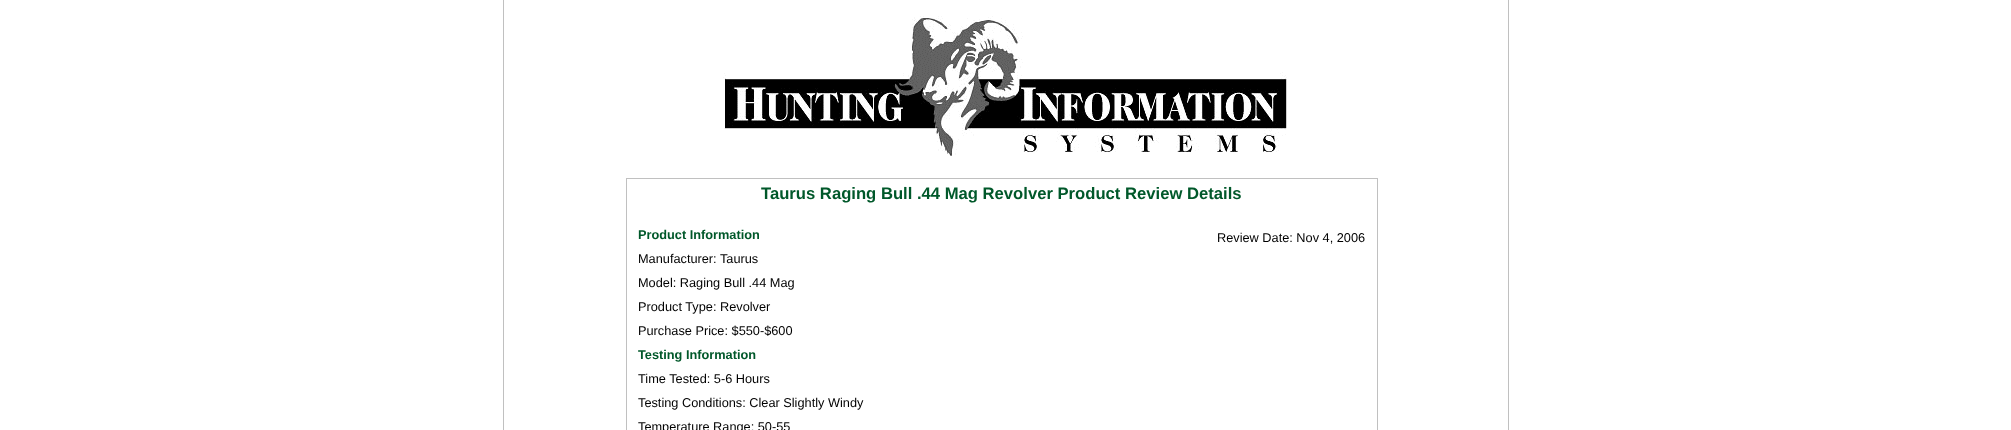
<!DOCTYPE html>
<meta charset="utf-8">
<style>body { margin: 0 } canvas { display: block }</style>
<canvas id="canvas" width="2011" height="430"></canvas>
<img id="img1" src="img_01.png" hidden>
<script>
window.onload = function () {
	const canvas = document.getElementById("canvas");
	const ctx = canvas.getContext("2d");
	ctx.miterLimit = 4;
	ctx.fontKerning = "normal";
	function txt(s, x, y) {
		ctx.fillText(s, x, y);
	}
	function fill(x, y, w, h) {
		ctx.fillRect(x, y, w, h);
	}
	function img(id, x, y, w, h) {
		ctx.drawImage(document.getElementById(id), x, y, w, h);
	}

	ctx.fillStyle = "#FFFFFF";
	fill(0, 0, 2011, 430);
	ctx.fillStyle = "#C0C0C0";
	fill(1508, 0, 1, 430);
	fill(503, 0, 1, 430);
	img("img1", 723, 16, 564, 140);
	ctx.strokeStyle = "#C0C0C0";
	ctx.strokeRect(626.5, 178.5, 751, 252);
	ctx.font = "bold 16.65px Liberation Sans";
	ctx.fillStyle = "#00582A";
	txt("Taurus Raging Bull .44 Mag Revolver Product Review Details", 761, 199);
	ctx.font = "bold 12.75px Liberation Sans";
	txt("Product Information", 638, 239);
	ctx.font = "12.75px Liberation Sans";
	ctx.fillStyle = "#000000";
	txt("Review Date: Nov 4, 2006", 1217, 242);
	txt("Manufacturer: Taurus", 638, 263);
	txt("Model: Raging Bull .44 Mag", 638, 287);
	txt("Product Type: Revolver", 638, 311);
	txt("Purchase Price: $550-$600", 638, 335);
	ctx.font = "bold 12.75px Liberation Sans";
	ctx.fillStyle = "#00582A";
	txt("Testing Information", 638, 359);
	ctx.font = "12.75px Liberation Sans";
	ctx.fillStyle = "#000000";
	txt("Time Tested: 5-6 Hours", 638, 383);
	txt("Testing Conditions: Clear Slightly Windy", 638, 407);
	txt("Temperature Range: 50-55", 638, 431);
};
</script>
